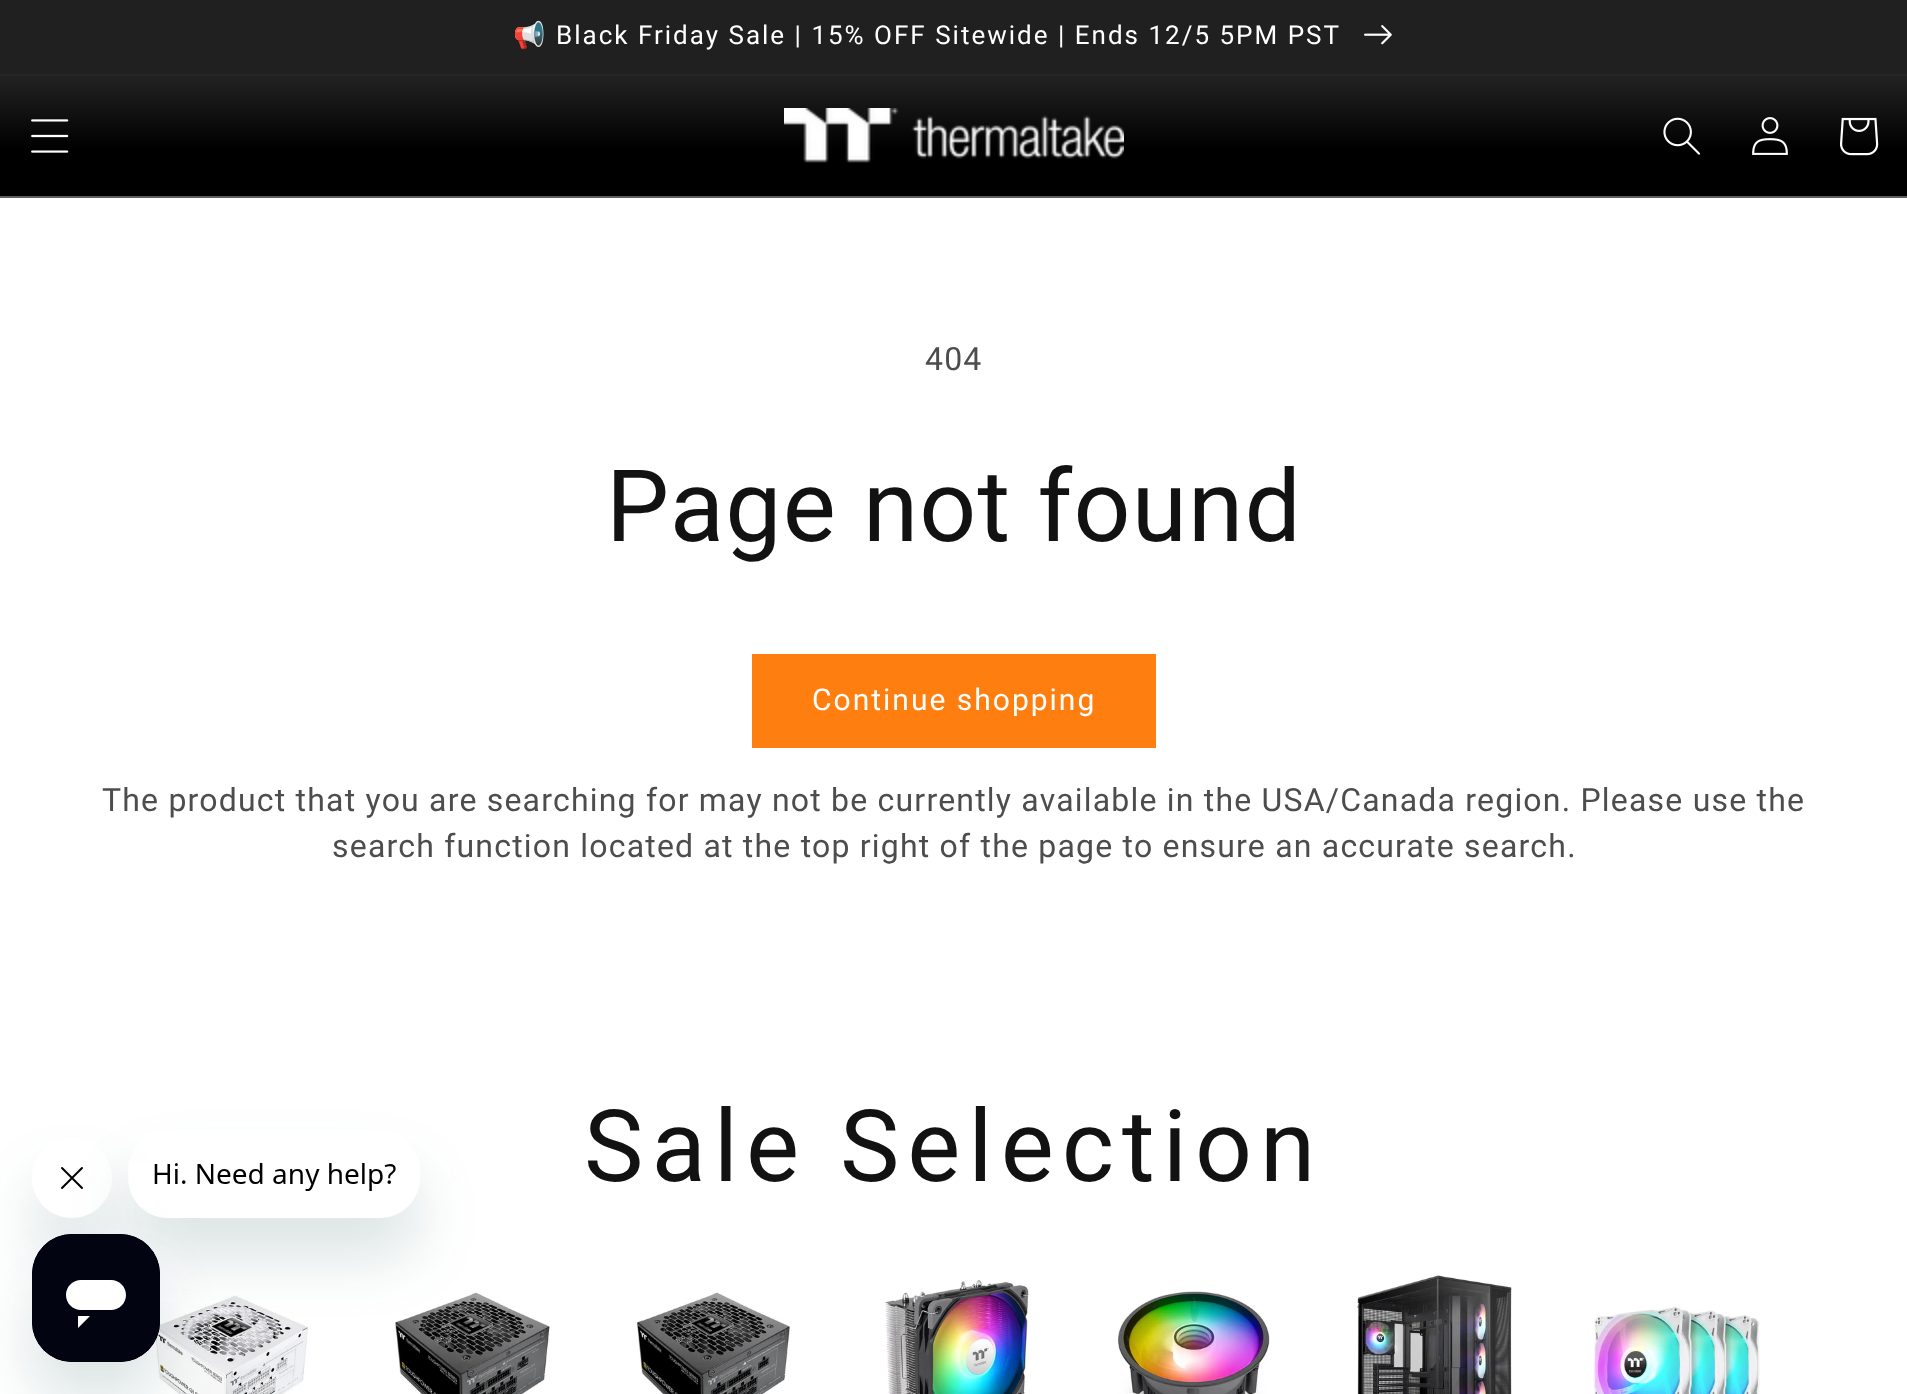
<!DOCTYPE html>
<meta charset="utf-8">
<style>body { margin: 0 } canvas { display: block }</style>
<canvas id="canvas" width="1907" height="1394"></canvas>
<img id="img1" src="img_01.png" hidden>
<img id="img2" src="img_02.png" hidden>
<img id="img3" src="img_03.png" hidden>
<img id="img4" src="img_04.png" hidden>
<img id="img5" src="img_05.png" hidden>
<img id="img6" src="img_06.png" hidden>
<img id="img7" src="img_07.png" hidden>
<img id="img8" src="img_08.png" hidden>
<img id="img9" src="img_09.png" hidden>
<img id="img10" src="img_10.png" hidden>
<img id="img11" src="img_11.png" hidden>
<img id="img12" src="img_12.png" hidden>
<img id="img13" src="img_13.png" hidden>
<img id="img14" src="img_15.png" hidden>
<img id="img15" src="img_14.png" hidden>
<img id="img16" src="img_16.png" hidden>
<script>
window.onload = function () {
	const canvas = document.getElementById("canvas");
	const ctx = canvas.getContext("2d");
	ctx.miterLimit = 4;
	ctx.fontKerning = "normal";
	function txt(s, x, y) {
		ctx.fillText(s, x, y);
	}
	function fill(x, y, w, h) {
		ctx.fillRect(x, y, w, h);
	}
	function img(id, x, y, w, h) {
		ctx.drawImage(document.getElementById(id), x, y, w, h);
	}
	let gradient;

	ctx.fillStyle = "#FFFFFF";
	fill(0, 0, 1907, 1394);
	ctx.fillStyle = "#252525";
	fill(0, 74, 1907, 2);
	ctx.fillStyle = "#202020";
	fill(0, 0, 1907, 74);
	img("img1", 1364, 25, 28, 20);
	gradient = ctx.createLinearGradient(954, 76, 954, 196);
	gradient.addColorStop(0, "#222222");
	gradient.addColorStop(0.61, "#000000");
	ctx.fillStyle = gradient;
	fill(0, 76, 1907, 120);
	ctx.fillStyle = "#5F5F5F";
	fill(0, 196, 1907, 2);
	img("img2", 31, 119, 38, 34);
	img("img3", 784, 108, 340, 55);
	img("img4", 1663, 117, 37, 38);
	img("img5", 1752, 117, 36, 38);
	img("img6", 1840, 117, 39, 39);
	ctx.fillStyle = "#FF7E10";
	fill(752, 654, 404, 94);
	img("img7", 154, 1295, 154, 99);
	img("img8", 395, 1292, 155, 102);
	img("img9", 636, 1292, 154, 102);
	img("img10", 885, 1280, 145, 114);
	img("img11", 1118, 1291, 152, 103);
	img("img12", 1357, 1275, 155, 119);
	img("img13", 1593, 1306, 167, 88);
	ctx.save();
	ctx.beginPath();
	ctx.moveTo(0, 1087);
	ctx.lineTo(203, 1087);
	ctx.lineTo(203, 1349);
	ctx.lineTo(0, 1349);
	ctx.closePath();
	ctx.moveTo(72, 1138);
	ctx.bezierCurveTo(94, 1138, 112, 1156, 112, 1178);
	ctx.bezierCurveTo(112, 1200, 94, 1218, 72, 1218);
	ctx.bezierCurveTo(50, 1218, 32, 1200, 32, 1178);
	ctx.bezierCurveTo(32, 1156, 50, 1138, 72, 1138);
	ctx.closePath();
	ctx.clip("evenodd");
	ctx.fillStyle = "rgba(23, 73, 77, 0.15)";
	ctx.filter = "blur(30px)";
	ctx.beginPath();
	ctx.roundRect(32, 1178, 80, 80, 40);
	ctx.fill();
	ctx.filter = "none";
	ctx.restore();
	img("img14", 61, 1167, 22, 22);
	ctx.save();
	ctx.beginPath();
	ctx.moveTo(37, 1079);
	ctx.lineTo(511, 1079);
	ctx.lineTo(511, 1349);
	ctx.lineTo(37, 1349);
	ctx.closePath();
	ctx.moveTo(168, 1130);
	ctx.lineTo(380, 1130);
	ctx.bezierCurveTo(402, 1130, 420, 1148, 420, 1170);
	ctx.lineTo(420, 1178);
	ctx.bezierCurveTo(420, 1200, 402, 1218, 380, 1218);
	ctx.lineTo(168, 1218);
	ctx.bezierCurveTo(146, 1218, 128, 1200, 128, 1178);
	ctx.lineTo(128, 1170);
	ctx.bezierCurveTo(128, 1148, 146, 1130, 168, 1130);
	ctx.closePath();
	ctx.clip("evenodd");
	ctx.fillStyle = "rgba(23, 73, 77, 0.15)";
	ctx.filter = "blur(30px)";
	ctx.beginPath();
	ctx.roundRect(128, 1170, 292, 88, 40);
	ctx.fill();
	ctx.filter = "none";
	ctx.restore();
	img("img15", 129, 1163, 267, 44);
	ctx.fillStyle = "rgba(23, 73, 77, 0.15)";
	ctx.filter = "blur(30px)";
	ctx.beginPath();
	ctx.roundRect(32, 1274, 128, 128, 40);
	ctx.fill();
	ctx.filter = "none";
	img("img16", 32, 1234, 128, 128);
	ctx.letterSpacing = "2px";
	ctx.font = "26px Noto Color Emoji";
	ctx.fillStyle = "#FFFFFF";
	txt("📢", 513, 44);
	ctx.font = "26px Roboto";
	txt("Black Friday Sale | 15% OFF Sitewide | Ends 12/5 5PM PST", 556, 44);
	ctx.letterSpacing = "1.2px";
	ctx.font = "32px Roboto";
	ctx.fillStyle = "#4D4D4D";
	txt("404", 925, 370);
	ctx.font = "100px Roboto";
	ctx.fillStyle = "#121212";
	txt("Page not found", 606, 541);
	ctx.letterSpacing = "2px";
	ctx.font = "30px Roboto";
	ctx.fillStyle = "#FFFFFF";
	txt("Continue shopping", 812, 710);
	ctx.letterSpacing = "1.2px";
	ctx.font = "32px Roboto";
	ctx.fillStyle = "#4D4D4D";
	txt("The product that you are searching for may not be currently available in the USA/Canada region. Please use the", 102, 811);
	txt("search function located at the top right of the page to ensure an accurate search.", 332, 857);
	ctx.letterSpacing = "8px";
	ctx.font = "100px Roboto";
	ctx.fillStyle = "#121212";
	txt("Sale Selection", 584, 1181);
};
</script>
